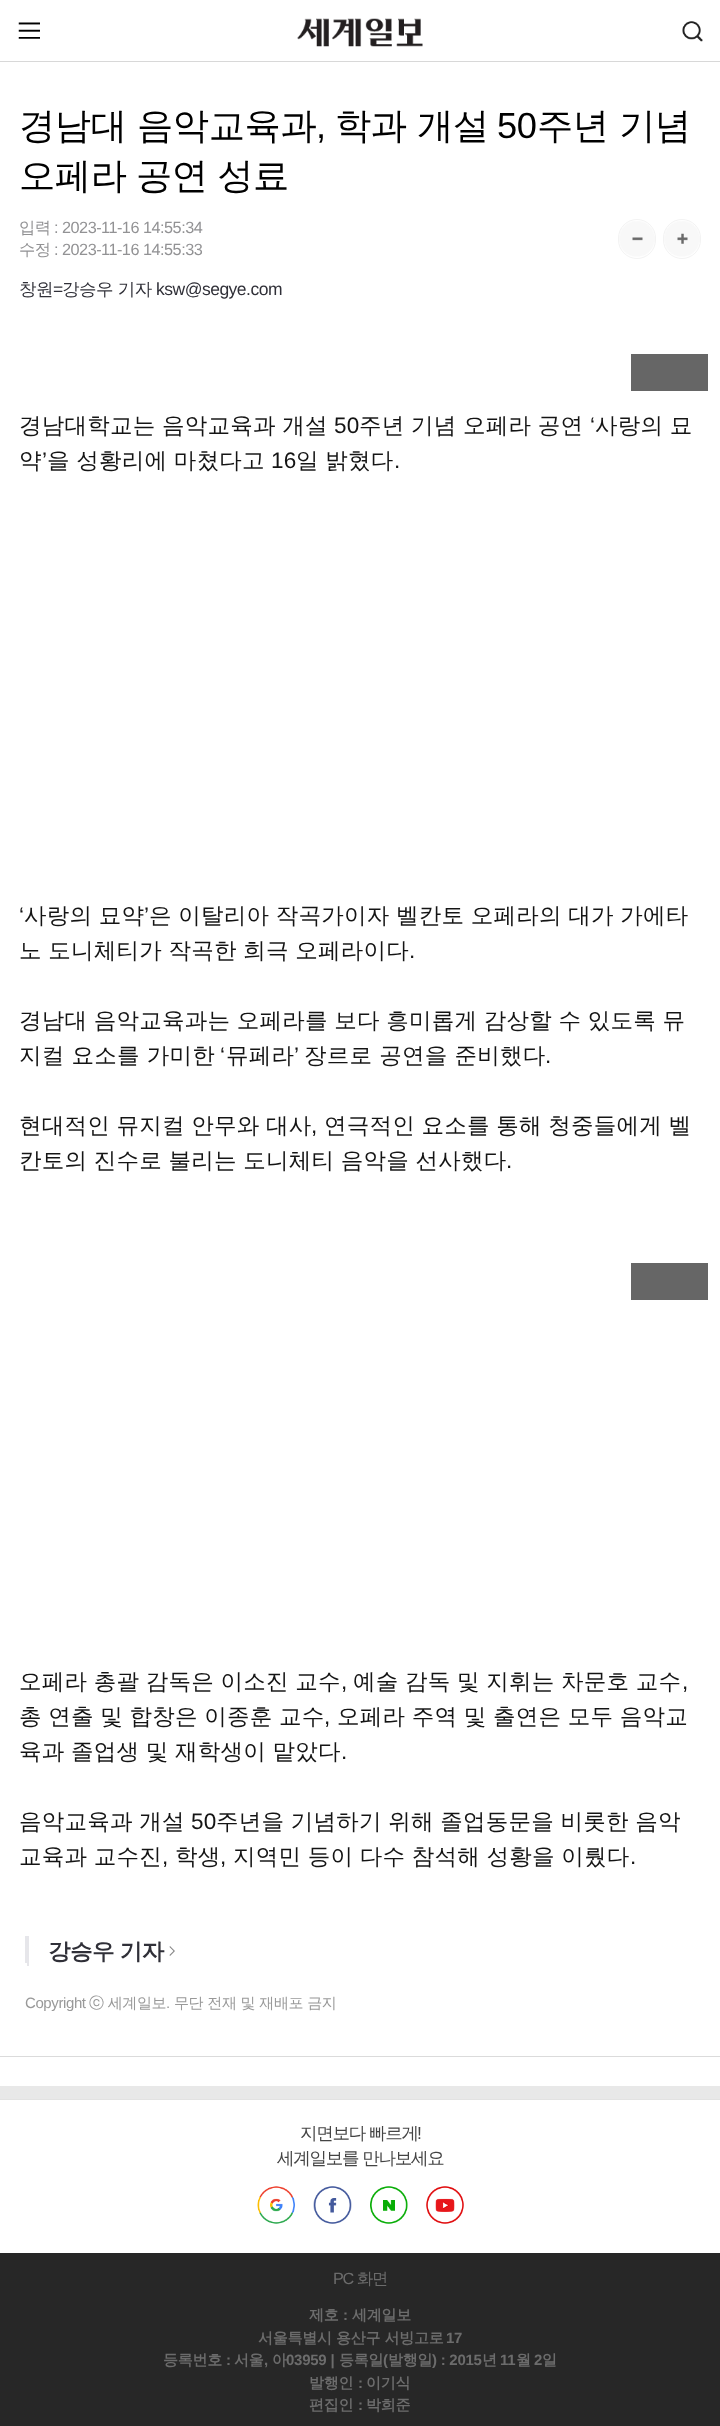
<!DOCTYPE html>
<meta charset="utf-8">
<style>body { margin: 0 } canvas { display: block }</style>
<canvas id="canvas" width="720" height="2426"></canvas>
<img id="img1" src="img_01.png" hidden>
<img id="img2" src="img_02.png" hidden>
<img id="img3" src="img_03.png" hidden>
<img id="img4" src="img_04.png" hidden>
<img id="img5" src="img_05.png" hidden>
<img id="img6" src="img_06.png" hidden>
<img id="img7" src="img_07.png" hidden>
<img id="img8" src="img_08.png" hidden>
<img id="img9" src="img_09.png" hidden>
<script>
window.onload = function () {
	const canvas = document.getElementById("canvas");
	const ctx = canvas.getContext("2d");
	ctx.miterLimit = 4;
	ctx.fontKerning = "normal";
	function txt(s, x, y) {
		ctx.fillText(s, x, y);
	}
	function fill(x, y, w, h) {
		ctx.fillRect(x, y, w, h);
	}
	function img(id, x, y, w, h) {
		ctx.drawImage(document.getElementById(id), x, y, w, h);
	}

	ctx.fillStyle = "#E8E8E8";
	fill(0, 0, 720, 2426);
	ctx.fillStyle = "#FFFFFF";
	fill(0, 0, 720, 2086);
	ctx.fillStyle = "#D8D8D8";
	fill(0, 61, 720, 1);
	img("img1", 18, 22, 22, 17);
	img("img2", 297, 18, 126, 29);
	img("img3", 682, 21, 21, 21);
	ctx.beginPath();
	ctx.roundRect(618.5, 219.5, 37, 39, 18.5);
	ctx.strokeStyle = "#F3F3F3";
	ctx.stroke();
	img("img4", 619, 221, 36, 36);
	ctx.beginPath();
	ctx.roundRect(663.5, 219.5, 37, 39, 18.5);
	ctx.stroke();
	img("img5", 664, 221, 36, 36);
	ctx.fillStyle = "#666666";
	fill(631, 354, 77, 37);
	fill(631, 1263, 77, 37);
	ctx.fillStyle = "#E6E6EA";
	fill(25, 1936, 4, 30);
	ctx.fillStyle = "#858585";
	ctx.beginPath();
	ctx.moveTo(170, 1946);
	ctx.lineTo(175, 1951);
	ctx.lineTo(173.5, 1951);
	ctx.lineTo(169.5, 1947);
	ctx.closePath();
	ctx.moveTo(175, 1951);
	ctx.lineTo(170, 1956);
	ctx.lineTo(169.5, 1955);
	ctx.lineTo(173.5, 1951);
	ctx.closePath();
	ctx.fill();
	ctx.fillStyle = "#FFFFFF";
	fill(23, 1963, 4, 3);
	ctx.fillStyle = "#DBDBDB";
	fill(0, 2056, 720, 1);
	ctx.fillStyle = "#FFFFFF";
	fill(0, 2100, 720, 153);
	ctx.fillStyle = "#E2E2E2";
	fill(0, 2099, 720, 1);
	img("img6", 257, 2186, 38, 38);
	img("img7", 313, 2186, 39, 38);
	img("img8", 370, 2186, 38, 38);
	img("img9", 426, 2186, 38, 38);
	ctx.fillStyle = "#272727";
	fill(0, 2253, 720, 173);
	ctx.letterSpacing = "-0.4px";
	ctx.font = "500 36.25px WenQuanYi Zen Hei";
	ctx.fillStyle = "#000000";
	txt("경남대 음악교육과", 19, 138);
	ctx.font = "36.25px Liberation Sans";
	txt(",", 316, 138);
	ctx.font = "500 36.25px WenQuanYi Zen Hei";
	txt("학과 개설", 335, 138);
	ctx.font = "36.25px Liberation Sans";
	txt("50", 497, 138);
	ctx.font = "500 36.25px WenQuanYi Zen Hei";
	txt("주년 기념", 537, 138);
	ctx.wordSpacing = "-1px";
	txt("오페라 공연 성료", 19, 188);
	ctx.letterSpacing = "-0.5px";
	ctx.wordSpacing = "0px";
	ctx.font = "500 16.25px WenQuanYi Zen Hei";
	ctx.fillStyle = "#929294";
	txt("입력", 19, 233);
	ctx.font = "16.25px Liberation Sans";
	txt(": 2023-11-16 14:55:34", 54, 233);
	ctx.font = "500 16.25px WenQuanYi Zen Hei";
	txt("수정", 19, 255);
	ctx.font = "16.25px Liberation Sans";
	txt(": 2023-11-16 14:55:33", 54, 255);
	ctx.font = "500 17.5px WenQuanYi Zen Hei";
	ctx.fillStyle = "#303038";
	txt("창원", 19, 295);
	ctx.font = "17.5px Liberation Sans";
	txt("=", 53, 295);
	ctx.font = "500 17.5px WenQuanYi Zen Hei";
	txt("강승우 기자", 62, 295);
	ctx.font = "17.5px Liberation Sans";
	txt("ksw@segye.com", 156, 295);
	ctx.letterSpacing = "0.25px";
	ctx.wordSpacing = "-0.5px";
	ctx.font = "500 22.5px WenQuanYi Zen Hei";
	ctx.fillStyle = "#141414";
	txt("경남대학교는 음악교육과 개설", 19, 433);
	ctx.wordSpacing = "0px";
	ctx.font = "22.5px Liberation Sans";
	txt("50", 334, 433);
	ctx.wordSpacing = "-0.5px";
	ctx.font = "500 22.5px WenQuanYi Zen Hei";
	txt("주년 기념 오페라 공연", 359, 433);
	ctx.wordSpacing = "0px";
	ctx.font = "22.5px Liberation Sans";
	txt("‘", 590, 433);
	ctx.wordSpacing = "-0.5px";
	ctx.font = "500 22.5px WenQuanYi Zen Hei";
	txt("사랑의 묘", 595, 433);
	ctx.wordSpacing = "0px";
	txt("약", 19, 468);
	ctx.font = "22.5px Liberation Sans";
	txt("’", 42, 468);
	ctx.wordSpacing = "-0.5px";
	ctx.font = "500 22.5px WenQuanYi Zen Hei";
	txt("을 성황리에 마쳤다고", 47, 468);
	ctx.wordSpacing = "0px";
	ctx.font = "22.5px Liberation Sans";
	txt("16", 271, 468);
	ctx.wordSpacing = "-0.5px";
	ctx.font = "500 22.5px WenQuanYi Zen Hei";
	txt("일 밝혔다", 296, 468);
	ctx.wordSpacing = "0px";
	ctx.font = "22.5px Liberation Sans";
	txt(".", 394, 468);
	txt("‘", 19, 923);
	ctx.wordSpacing = "-0.5px";
	ctx.font = "500 22.5px WenQuanYi Zen Hei";
	txt("사랑의 묘약", 24, 923);
	ctx.wordSpacing = "0px";
	ctx.font = "22.5px Liberation Sans";
	txt("’", 144, 923);
	ctx.wordSpacing = "-0.5px";
	ctx.font = "500 22.5px WenQuanYi Zen Hei";
	txt("은 이탈리아 작곡가이자 벨칸토 오페라의 대가 가에타", 149, 923);
	txt("노 도니체티가 작곡한 희극 오페라이다", 19, 958);
	ctx.wordSpacing = "0px";
	ctx.font = "22.5px Liberation Sans";
	txt(".", 409, 958);
	ctx.wordSpacing = "-0.5px";
	ctx.font = "500 22.5px WenQuanYi Zen Hei";
	txt("경남대 음악교육과는 오페라를 보다 흥미롭게 감상할 수 있도록 뮤", 19, 1028);
	ctx.wordSpacing = "0px";
	txt("지컬 요소를 가미한", 19, 1063);
	ctx.font = "22.5px Liberation Sans";
	txt("‘", 220, 1063);
	ctx.font = "500 22.5px WenQuanYi Zen Hei";
	txt("뮤페라", 226, 1063);
	ctx.font = "22.5px Liberation Sans";
	txt("’", 294, 1063);
	ctx.font = "500 22.5px WenQuanYi Zen Hei";
	txt("장르로 공연을 준비했다", 304, 1063);
	ctx.font = "22.5px Liberation Sans";
	txt(".", 545, 1063);
	ctx.wordSpacing = "-0.5px";
	ctx.font = "500 22.5px WenQuanYi Zen Hei";
	txt("현대적인 뮤지컬 안무와 대사", 19, 1133);
	ctx.wordSpacing = "0px";
	ctx.font = "22.5px Liberation Sans";
	txt(",", 311, 1133);
	ctx.wordSpacing = "-0.5px";
	ctx.font = "500 22.5px WenQuanYi Zen Hei";
	txt("연극적인 요소를 통해 청중들에게 벨", 324, 1133);
	txt("칸토의 진수로 불리는 도니체티 음악을 선사했다", 19, 1168);
	ctx.wordSpacing = "0px";
	ctx.font = "22.5px Liberation Sans";
	txt(".", 506, 1168);
	ctx.wordSpacing = "-0.5px";
	ctx.font = "500 22.5px WenQuanYi Zen Hei";
	txt("오페라 총괄 감독은 이소진 교수", 19, 1689);
	ctx.wordSpacing = "0px";
	ctx.font = "22.5px Liberation Sans";
	txt(",", 341, 1689);
	ctx.wordSpacing = "-0.5px";
	ctx.font = "500 22.5px WenQuanYi Zen Hei";
	txt("예술 감독 및 지휘는 차문호 교수", 353, 1689);
	ctx.wordSpacing = "0px";
	ctx.font = "22.5px Liberation Sans";
	txt(",", 682, 1689);
	ctx.wordSpacing = "-0.5px";
	ctx.font = "500 22.5px WenQuanYi Zen Hei";
	txt("총 연출 및 합창은 이종훈 교수", 19, 1724);
	ctx.wordSpacing = "0px";
	ctx.font = "22.5px Liberation Sans";
	txt(",", 324, 1724);
	ctx.wordSpacing = "-0.5px";
	ctx.font = "500 22.5px WenQuanYi Zen Hei";
	txt("오페라 주역 및 출연은 모두 음악교", 337, 1724);
	txt("육과 졸업생 및 재학생이 맡았다", 19, 1759);
	ctx.wordSpacing = "0px";
	ctx.font = "22.5px Liberation Sans";
	txt(".", 341, 1759);
	ctx.wordSpacing = "-0.5px";
	ctx.font = "500 22.5px WenQuanYi Zen Hei";
	txt("음악교육과 개설", 19, 1829);
	ctx.wordSpacing = "0px";
	ctx.font = "22.5px Liberation Sans";
	txt("50", 191, 1829);
	ctx.wordSpacing = "-0.5px";
	ctx.font = "500 22.5px WenQuanYi Zen Hei";
	txt("주년을 기념하기 위해 졸업동문을 비롯한 음악", 216, 1829);
	txt("교육과 교수진", 19, 1864);
	ctx.wordSpacing = "0px";
	ctx.font = "22.5px Liberation Sans";
	txt(",", 162, 1864);
	ctx.font = "500 22.5px WenQuanYi Zen Hei";
	txt("학생", 175, 1864);
	ctx.font = "22.5px Liberation Sans";
	txt(",", 220, 1864);
	ctx.wordSpacing = "-0.5px";
	ctx.font = "500 22.5px WenQuanYi Zen Hei";
	txt("지역민 등이 다수 참석해 성황을 이뤘다", 233, 1864);
	ctx.wordSpacing = "0px";
	ctx.font = "22.5px Liberation Sans";
	txt(".", 630, 1864);
	ctx.letterSpacing = "-0.5px";
	ctx.wordSpacing = "-0.5px";
	ctx.font = "bold 22.5px WenQuanYi Zen Hei";
	ctx.fillStyle = "#303038";
	txt("강승우 기자", 48, 1959);
	ctx.letterSpacing = "-0.4px";
	ctx.wordSpacing = "0px";
	ctx.font = "15px Liberation Sans";
	ctx.fillStyle = "#999999";
	txt("Copyright", 25, 2008);
	ctx.font = "500 15px WenQuanYi Zen Hei";
	txt("ⓒ 세계일보", 89, 2008);
	ctx.font = "15px Liberation Sans";
	txt(".", 166, 2008);
	ctx.font = "500 15px WenQuanYi Zen Hei";
	txt("무단 전재 및 재배포 금지", 174, 2008);
	ctx.letterSpacing = "-1.25px";
	ctx.font = "500 17.5px WenQuanYi Zen Hei";
	ctx.fillStyle = "#444444";
	txt("지면보다 빠르게", 300, 2139);
	ctx.font = "17.5px Liberation Sans";
	txt("!", 417, 2139);
	ctx.font = "500 17.5px WenQuanYi Zen Hei";
	txt("세계일보를 만나보세요", 277, 2164);
	ctx.font = "16.25px Liberation Sans";
	ctx.fillStyle = "#6C6C6C";
	txt("PC", 333, 2284);
	ctx.font = "500 16.25px WenQuanYi Zen Hei";
	txt("화면", 357, 2284);
	ctx.letterSpacing = "-0.25px";
	ctx.font = "bold 15px WenQuanYi Zen Hei";
	txt("제호", 309, 2320);
	ctx.font = "bold 15px Liberation Sans";
	txt(":", 343, 2320);
	ctx.font = "bold 15px WenQuanYi Zen Hei";
	txt("세계일보", 352, 2320);
	txt("서울특별시 용산구 서빙고로", 258, 2343);
	ctx.font = "bold 15px Liberation Sans";
	txt("17", 446, 2343);
	ctx.font = "bold 15px WenQuanYi Zen Hei";
	txt("등록번호", 163, 2365);
	ctx.font = "bold 15px Liberation Sans";
	txt(":", 226, 2365);
	ctx.font = "bold 15px WenQuanYi Zen Hei";
	txt("서울", 234, 2365);
	ctx.font = "bold 15px Liberation Sans";
	txt(",", 264, 2365);
	ctx.font = "bold 15px WenQuanYi Zen Hei";
	txt("아", 272, 2365);
	ctx.font = "bold 15px Liberation Sans";
	txt("03959 |", 286, 2365);
	ctx.font = "bold 15px WenQuanYi Zen Hei";
	txt("등록일", 339, 2365);
	ctx.font = "bold 15px Liberation Sans";
	txt("(", 383, 2365);
	ctx.font = "bold 15px WenQuanYi Zen Hei";
	txt("발행일", 388, 2365);
	ctx.font = "bold 15px Liberation Sans";
	txt(") : 2015", 432, 2365);
	ctx.font = "bold 15px WenQuanYi Zen Hei";
	txt("년", 482, 2365);
	ctx.font = "bold 15px Liberation Sans";
	txt("11", 500, 2365);
	ctx.font = "bold 15px WenQuanYi Zen Hei";
	txt("월", 516, 2365);
	ctx.font = "bold 15px Liberation Sans";
	txt("2", 534, 2365);
	ctx.font = "bold 15px WenQuanYi Zen Hei";
	txt("일", 542, 2365);
	txt("발행인", 309, 2388);
	ctx.font = "bold 15px Liberation Sans";
	txt(":", 358, 2388);
	ctx.font = "bold 15px WenQuanYi Zen Hei";
	txt("이기식", 366, 2388);
	txt("편집인", 309, 2410);
	ctx.font = "bold 15px Liberation Sans";
	txt(":", 358, 2410);
	ctx.font = "bold 15px WenQuanYi Zen Hei";
	txt("박희준", 366, 2410);
};
</script>
